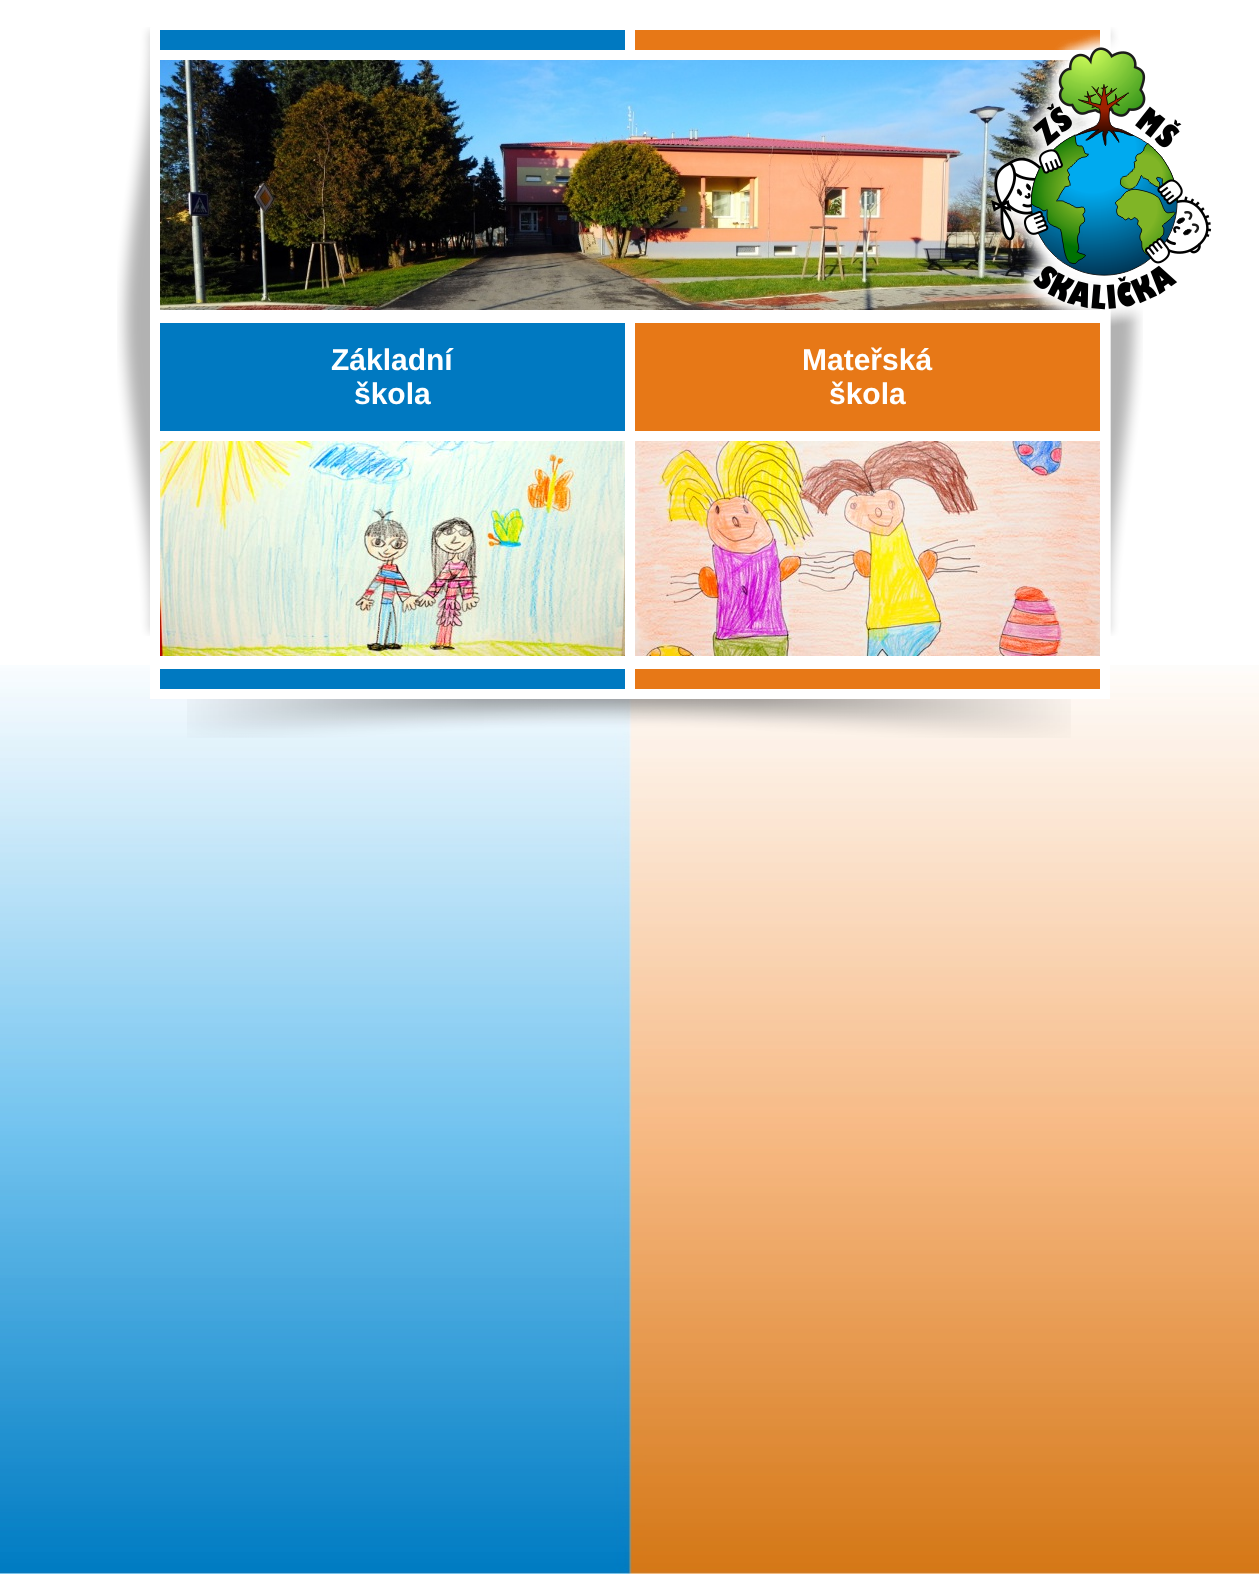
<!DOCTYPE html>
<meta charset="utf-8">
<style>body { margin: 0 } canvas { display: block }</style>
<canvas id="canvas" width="1259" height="1574"></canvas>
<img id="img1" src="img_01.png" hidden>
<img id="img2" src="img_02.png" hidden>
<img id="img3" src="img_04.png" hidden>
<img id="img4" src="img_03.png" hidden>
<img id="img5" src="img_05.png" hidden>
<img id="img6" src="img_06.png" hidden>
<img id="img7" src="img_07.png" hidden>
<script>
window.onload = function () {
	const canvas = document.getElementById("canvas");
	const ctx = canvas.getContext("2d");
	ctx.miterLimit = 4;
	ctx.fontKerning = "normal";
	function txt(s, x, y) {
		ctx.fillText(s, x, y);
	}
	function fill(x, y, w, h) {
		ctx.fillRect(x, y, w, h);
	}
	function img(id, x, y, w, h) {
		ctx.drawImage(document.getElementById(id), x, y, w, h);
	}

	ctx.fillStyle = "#FFFFFF";
	fill(0, 0, 1259, 1574);
	img("img1", 0, 665, 1259, 909);
	img("img2", 117, 27, 1026, 609);
	fill(150, 28, 960, 671);
	ctx.fillStyle = "#0079C1";
	fill(160, 30, 465, 20);
	ctx.fillStyle = "#E77817";
	fill(635, 30, 465, 20);
	img("img3", 160, 60, 940, 250);
	img("img4", 987, 33, 225, 293);
	ctx.fillStyle = "#0079C1";
	fill(160, 323, 465, 108);
	ctx.fillStyle = "#E77817";
	fill(635, 323, 465, 108);
	img("img5", 160, 441, 465, 215);
	img("img6", 635, 441, 465, 215);
	ctx.fillStyle = "#0079C1";
	fill(160, 669, 465, 20);
	ctx.fillStyle = "#E77817";
	fill(635, 669, 465, 20);
	img("img7", 187, 699, 884, 39);
	ctx.font = "bold 30px Liberation Sans";
	ctx.fillStyle = "#FFFFFF";
	txt("Základní", 331, 370);
	txt("škola", 354, 404);
	txt("Mateřská", 802, 370);
	txt("škola", 829, 404);
};
</script>
